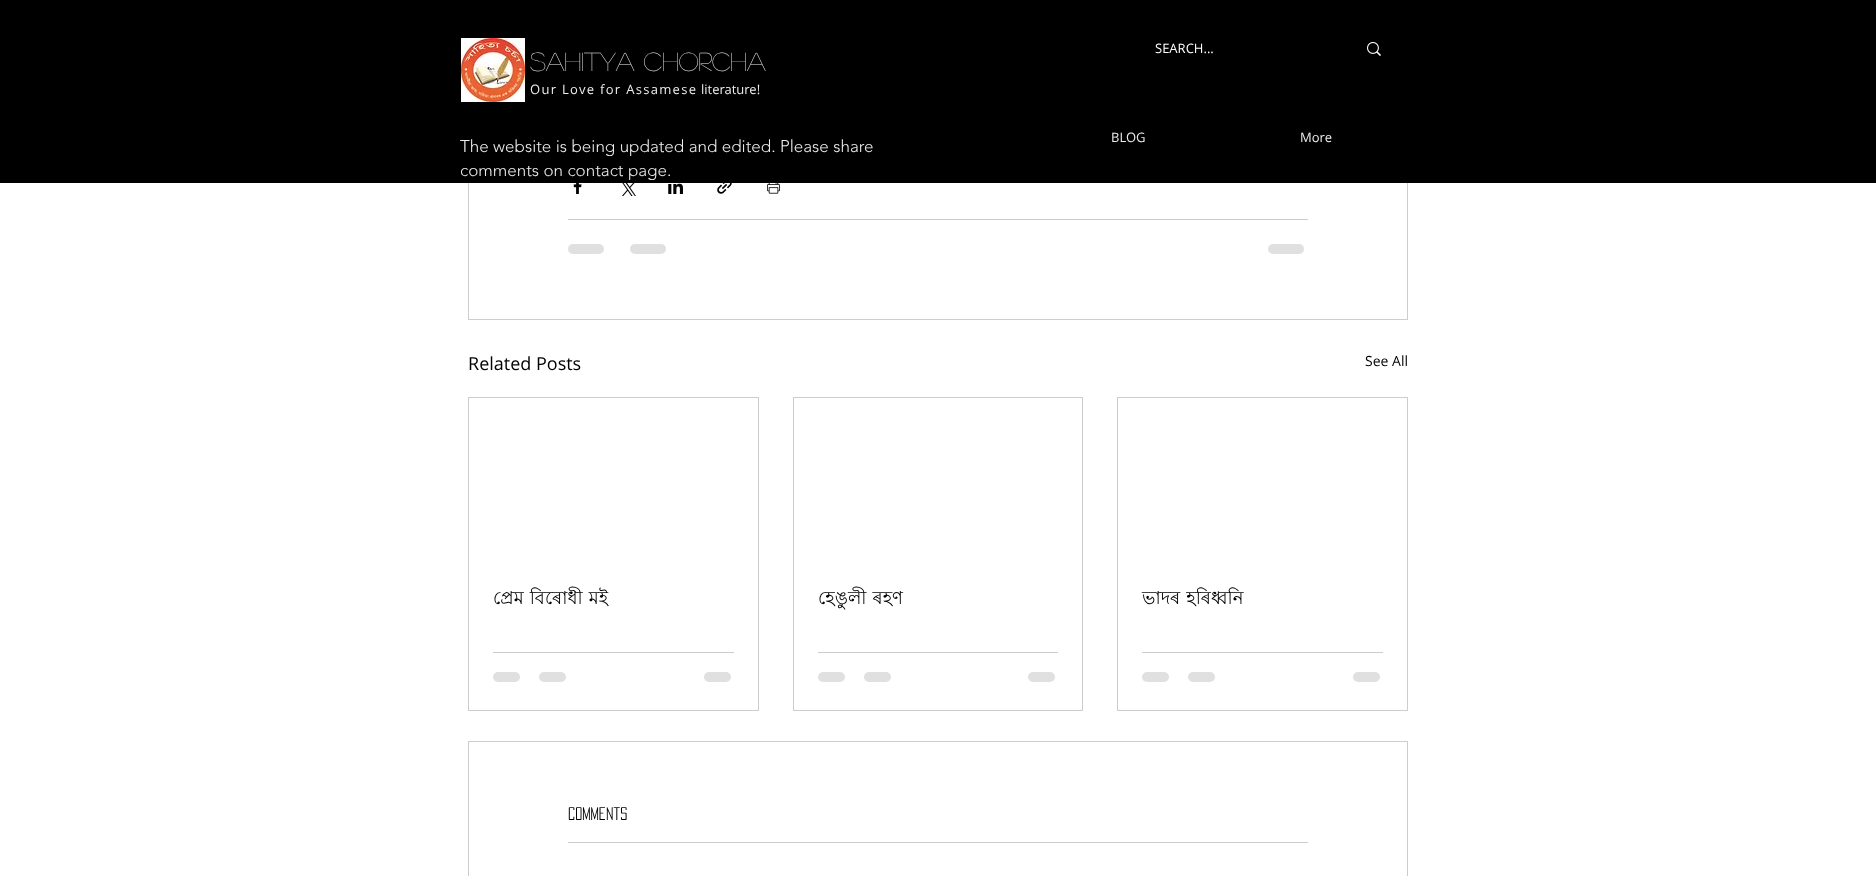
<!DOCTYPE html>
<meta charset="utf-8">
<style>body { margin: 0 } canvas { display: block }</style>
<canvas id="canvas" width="1876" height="876"></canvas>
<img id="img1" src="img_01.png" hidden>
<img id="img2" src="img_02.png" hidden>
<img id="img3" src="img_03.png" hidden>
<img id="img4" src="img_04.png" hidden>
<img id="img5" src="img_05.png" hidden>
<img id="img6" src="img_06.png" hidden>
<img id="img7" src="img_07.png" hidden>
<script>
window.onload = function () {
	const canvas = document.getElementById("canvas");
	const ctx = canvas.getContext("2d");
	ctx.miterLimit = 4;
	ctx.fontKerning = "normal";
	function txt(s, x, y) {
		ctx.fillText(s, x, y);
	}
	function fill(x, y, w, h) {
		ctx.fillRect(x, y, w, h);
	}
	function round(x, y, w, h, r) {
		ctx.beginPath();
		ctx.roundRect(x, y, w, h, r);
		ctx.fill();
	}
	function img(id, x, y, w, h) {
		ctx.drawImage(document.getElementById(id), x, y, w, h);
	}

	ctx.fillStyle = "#FFFFFF";
	fill(0, 0, 1876, 876);
	ctx.strokeStyle = "#CDCDC9";
	ctx.strokeRect(468.5, -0.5, 939, 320);
	ctx.fillStyle = "#000000";
	fill(0, 0, 1876, 183);
	img("img1", 461, 38, 64, 64);
	img("img2", 1367, 42, 14, 14);
	img("img3", 573, 183, 9, 11);
	img("img4", 622, 183, 14, 13);
	img("img5", 668, 183, 15, 11);
	img("img6", 717, 183, 15, 11);
	img("img7", 767, 183, 13, 11);
	ctx.fillStyle = "#CCCCCC";
	fill(568, 219, 740, 1);
	ctx.fillStyle = "#E0E0E0";
	round(568, 244, 36, 10, 5);
	round(630, 244, 36, 10, 5);
	round(1268, 244, 36, 10, 5);
	ctx.strokeRect(468.5, 397.5, 290, 313);
	ctx.fillStyle = "#CCCCCC";
	fill(493, 652, 241, 1);
	ctx.fillStyle = "#E0E0E0";
	round(493, 672, 27, 10, 5);
	round(539, 672, 27, 10, 5);
	round(704, 672, 27, 10, 5);
	ctx.strokeRect(793.5, 397.5, 289, 313);
	ctx.fillStyle = "#CCCCCC";
	fill(818, 652, 240, 1);
	ctx.fillStyle = "#E0E0E0";
	round(818, 672, 27, 10, 5);
	round(864, 672, 27, 10, 5);
	round(1028, 672, 27, 10, 5);
	ctx.strokeRect(1117.5, 397.5, 290, 313);
	ctx.fillStyle = "#CCCCCC";
	fill(1142, 652, 241, 1);
	ctx.fillStyle = "#E0E0E0";
	round(1142, 672, 27, 10, 5);
	round(1188, 672, 27, 10, 5);
	round(1353, 672, 27, 10, 5);
	ctx.strokeRect(468.5, 741.5, 939, 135);
	ctx.fillStyle = "#CCCCCC";
	fill(568, 842, 740, 1);
	ctx.font = "13px Open Sans";
	ctx.fillStyle = "#FFFFFF";
	txt("SEARCH...", 1155, 53);
	ctx.font = "26px 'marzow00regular'";
	ctx.fillStyle = "#EDEDEC";
	txt("Sahitya Chorcha", 530, 71);
	ctx.letterSpacing = "1.3px";
	ctx.font = "13px Open Sans";
	txt("Our Love for Assamese", 530, 94);
	ctx.letterSpacing = "0px";
	txt("literature!", 701, 94);
	txt("BLOG", 1111, 142);
	txt("More", 1300, 142);
	ctx.font = "300 17px 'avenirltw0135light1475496'";
	txt("The website is being updated and edited. Please share", 460, 152);
	txt("comments on contact page.", 460, 176);
	ctx.font = "18px Open Sans";
	ctx.fillStyle = "#000000";
	txt("Related Posts", 468, 370);
	ctx.font = "14px Open Sans";
	txt("See All", 1365, 366);
	ctx.wordSpacing = "1px";
	ctx.font = "18px Lohit Bengali";
	txt("প্ৰেম বিৰোধী মই", 493, 604);
	txt("হেঙুলী ৰহণ", 818, 604);
	txt("ভাদৰ হৰিধ্বনি", 1142, 604);
	ctx.wordSpacing = "0px";
	ctx.font = "16px 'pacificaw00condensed'";
	txt("Comments", 568, 820);
};
</script>
